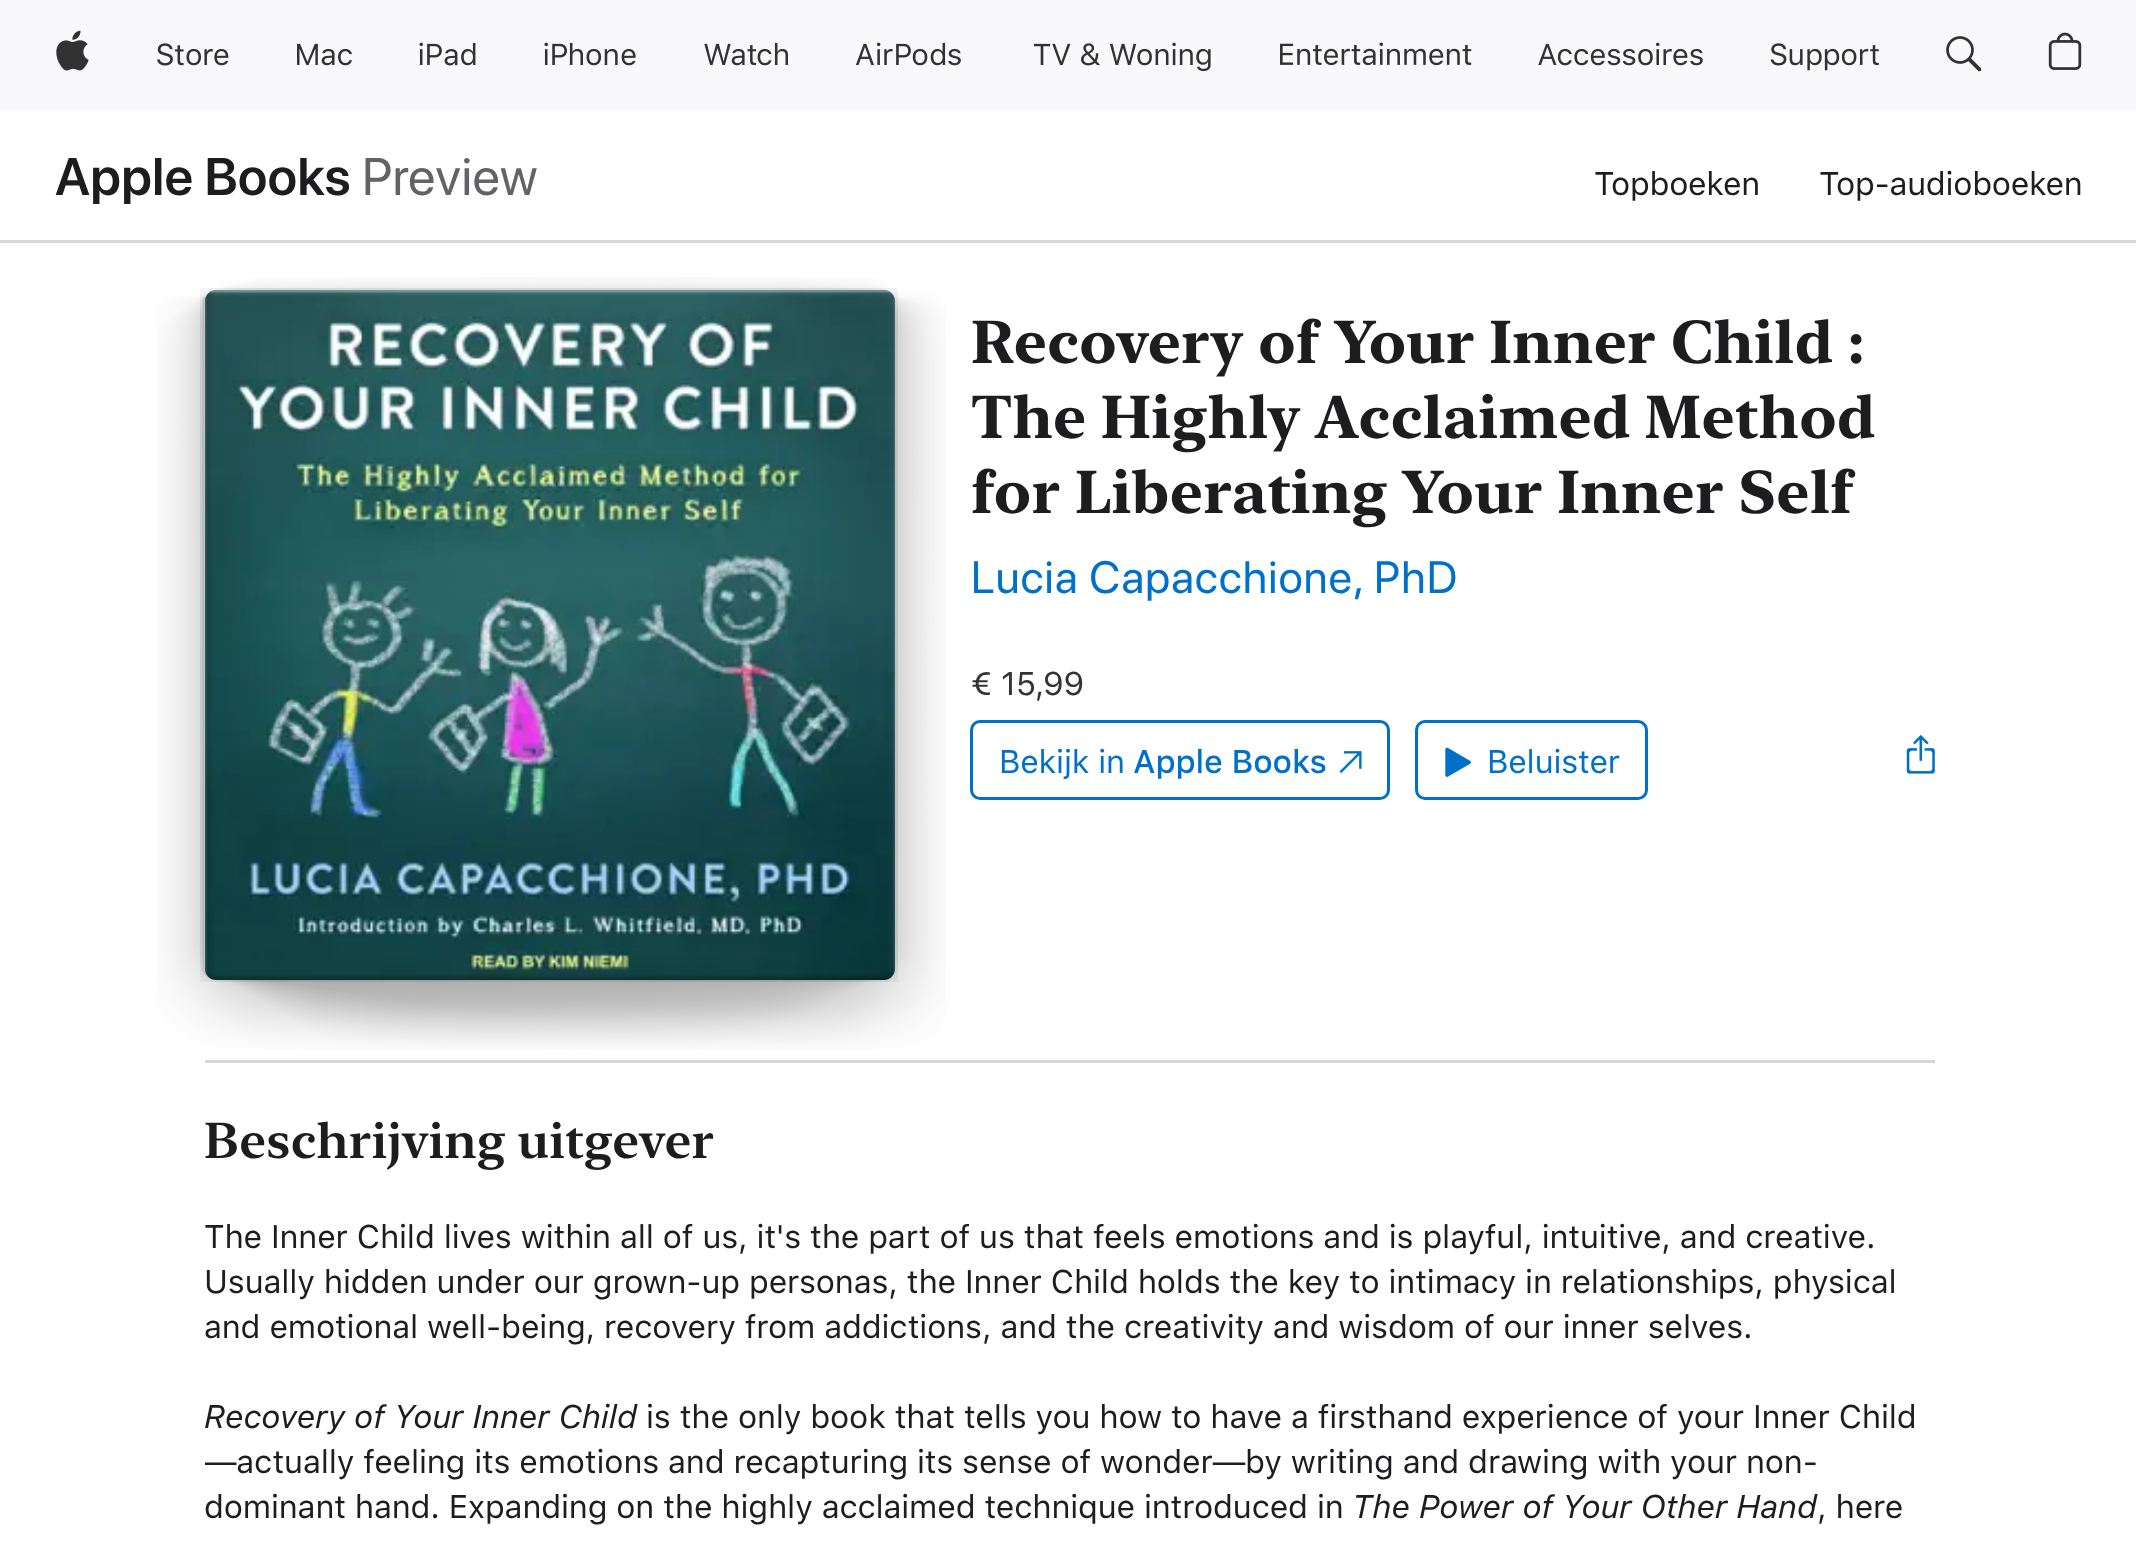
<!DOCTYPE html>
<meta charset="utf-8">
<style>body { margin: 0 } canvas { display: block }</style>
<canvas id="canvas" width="2136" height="1552"></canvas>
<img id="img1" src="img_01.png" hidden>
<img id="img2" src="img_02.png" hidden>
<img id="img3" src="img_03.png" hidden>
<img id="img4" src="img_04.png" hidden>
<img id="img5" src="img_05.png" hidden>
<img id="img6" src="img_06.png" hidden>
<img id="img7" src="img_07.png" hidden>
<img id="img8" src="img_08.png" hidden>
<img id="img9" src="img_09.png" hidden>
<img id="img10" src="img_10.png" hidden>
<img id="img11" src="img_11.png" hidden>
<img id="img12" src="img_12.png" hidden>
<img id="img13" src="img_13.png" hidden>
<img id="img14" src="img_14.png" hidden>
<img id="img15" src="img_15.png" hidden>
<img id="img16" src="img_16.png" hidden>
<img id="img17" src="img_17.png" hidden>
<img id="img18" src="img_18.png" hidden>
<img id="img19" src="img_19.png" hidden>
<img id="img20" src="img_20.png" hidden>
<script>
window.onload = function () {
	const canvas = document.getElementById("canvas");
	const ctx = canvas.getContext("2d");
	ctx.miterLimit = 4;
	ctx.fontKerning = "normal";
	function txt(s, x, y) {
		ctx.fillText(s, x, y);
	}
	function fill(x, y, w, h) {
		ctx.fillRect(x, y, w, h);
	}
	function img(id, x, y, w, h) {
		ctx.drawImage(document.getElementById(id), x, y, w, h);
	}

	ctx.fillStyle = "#FFFFFF";
	fill(0, 0, 2136, 1552);
	ctx.fillStyle = "#F9F9FB";
	fill(0, 0, 2136, 110);
	img("img1", 56, 30, 33, 41);
	img("img2", 157, 43, 72, 23);
	img("img3", 297, 43, 55, 23);
	img("img4", 419, 42, 57, 24);
	img("img5", 544, 42, 92, 24);
	img("img6", 704, 42, 84, 24);
	img("img7", 855, 42, 106, 24);
	img("img8", 1033, 42, 178, 30);
	img("img9", 1280, 42, 192, 24);
	img("img10", 1538, 42, 165, 24);
	img("img11", 1770, 43, 109, 28);
	img("img12", 1946, 36, 36, 36);
	img("img13", 2048, 32, 34, 38);
	ctx.fillStyle = "#D6D6D6";
	fill(0, 240, 2136, 3);
	img("img14", 157, 277, 789, 773);
	img("img15", 200, 288, 698, 694);
	img("img16", 205, 290, 690, 690);
	img("img17", 205, 290, 690, 690);
	ctx.beginPath();
	ctx.roundRect(971.5, 721.5, 417, 77, 8.5);
	ctx.strokeStyle = "#0070C9";
	ctx.lineWidth = 3;
	ctx.stroke();
	img("img18", 1339, 751, 23, 23);
	ctx.beginPath();
	ctx.roundRect(1416.5, 721.5, 230, 77, 8.5);
	ctx.stroke();
	img("img19", 1445, 747, 26, 30);
	img("img20", 1906, 735, 29, 39);
	fill(205, 1060, 1730, 3);
	ctx.letterSpacing = "0.5px";
	ctx.font = "600 52.5px SF Pro Display";
	ctx.fillStyle = "#1D1D1F";
	txt("Apple Books", 55, 195);
	ctx.font = "52.5px SF Pro Display";
	ctx.fillStyle = "#636366";
	txt("Preview", 362, 195);
	ctx.letterSpacing = "-0.3px";
	ctx.font = "32.5px SF Pro Text";
	ctx.fillStyle = "#1D1D1F";
	txt("Topboeken", 1594, 195);
	txt("Top-audioboeken", 1819, 195);
	ctx.letterSpacing = "0px";
	ctx.font = "500 60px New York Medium";
	txt("Recovery of Your Inner Child :", 971, 363);
	txt("The Highly Acclaimed Method", 971, 438);
	txt("for Liberating Your Inner Self", 971, 513);
	ctx.letterSpacing = "1.25px";
	ctx.font = "45px SF Pro Display";
	ctx.fillStyle = "#0070C9";
	txt("Lucia Capacchione, PhD", 971, 593);
	ctx.letterSpacing = "-0.16px";
	ctx.font = "32.5px SF Pro Text";
	ctx.fillStyle = "#333333";
	txt("€ 15,99", 971, 695);
	ctx.fillStyle = "#0070C9";
	txt("Bekijk in", 999, 773);
	ctx.font = "500 32.5px SF Pro Text";
	txt("Apple Books", 1133, 773);
	ctx.font = "32.5px SF Pro Text";
	txt("Beluister", 1487, 773);
	ctx.letterSpacing = "0px";
	ctx.font = "600 50px New York Medium";
	ctx.fillStyle = "#1D1D1F";
	txt("Beschrijving uitgever", 204, 1158);
	ctx.letterSpacing = "-0.16px";
	ctx.font = "32.5px SF Pro Text";
	txt("The Inner Child lives within all of us, it's the part of us that feels emotions and is playful, intuitive, and creative.", 204, 1248);
	txt("Usually hidden under our grown-up personas, the Inner Child holds the key to intimacy in relationships, physical", 204, 1293);
	txt("and emotional well-being, recovery from addictions, and the creativity and wisdom of our inner selves.", 204, 1338);
	ctx.font = "italic 32.5px SF Pro Text";
	txt("Recovery of Your Inner Child", 204, 1428);
	ctx.font = "32.5px SF Pro Text";
	txt("is the only book that tells you how to have a firsthand experience of your Inner Child", 646, 1428);
	ctx.save();
	ctx.beginPath();
	ctx.rect(205, 1215, 1730, 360);
	ctx.clip();
	txt("—actually feeling its emotions and recapturing its sense of wonder—by writing and drawing with your non-", 204, 1473);
	ctx.restore();
	txt("dominant hand. Expanding on the highly acclaimed technique introduced in", 204, 1518);
	ctx.font = "italic 32.5px SF Pro Text";
	txt("The Power of Your Other Hand", 1352, 1518);
	ctx.font = "32.5px SF Pro Text";
	txt(", here", 1817, 1518);
};
</script>
